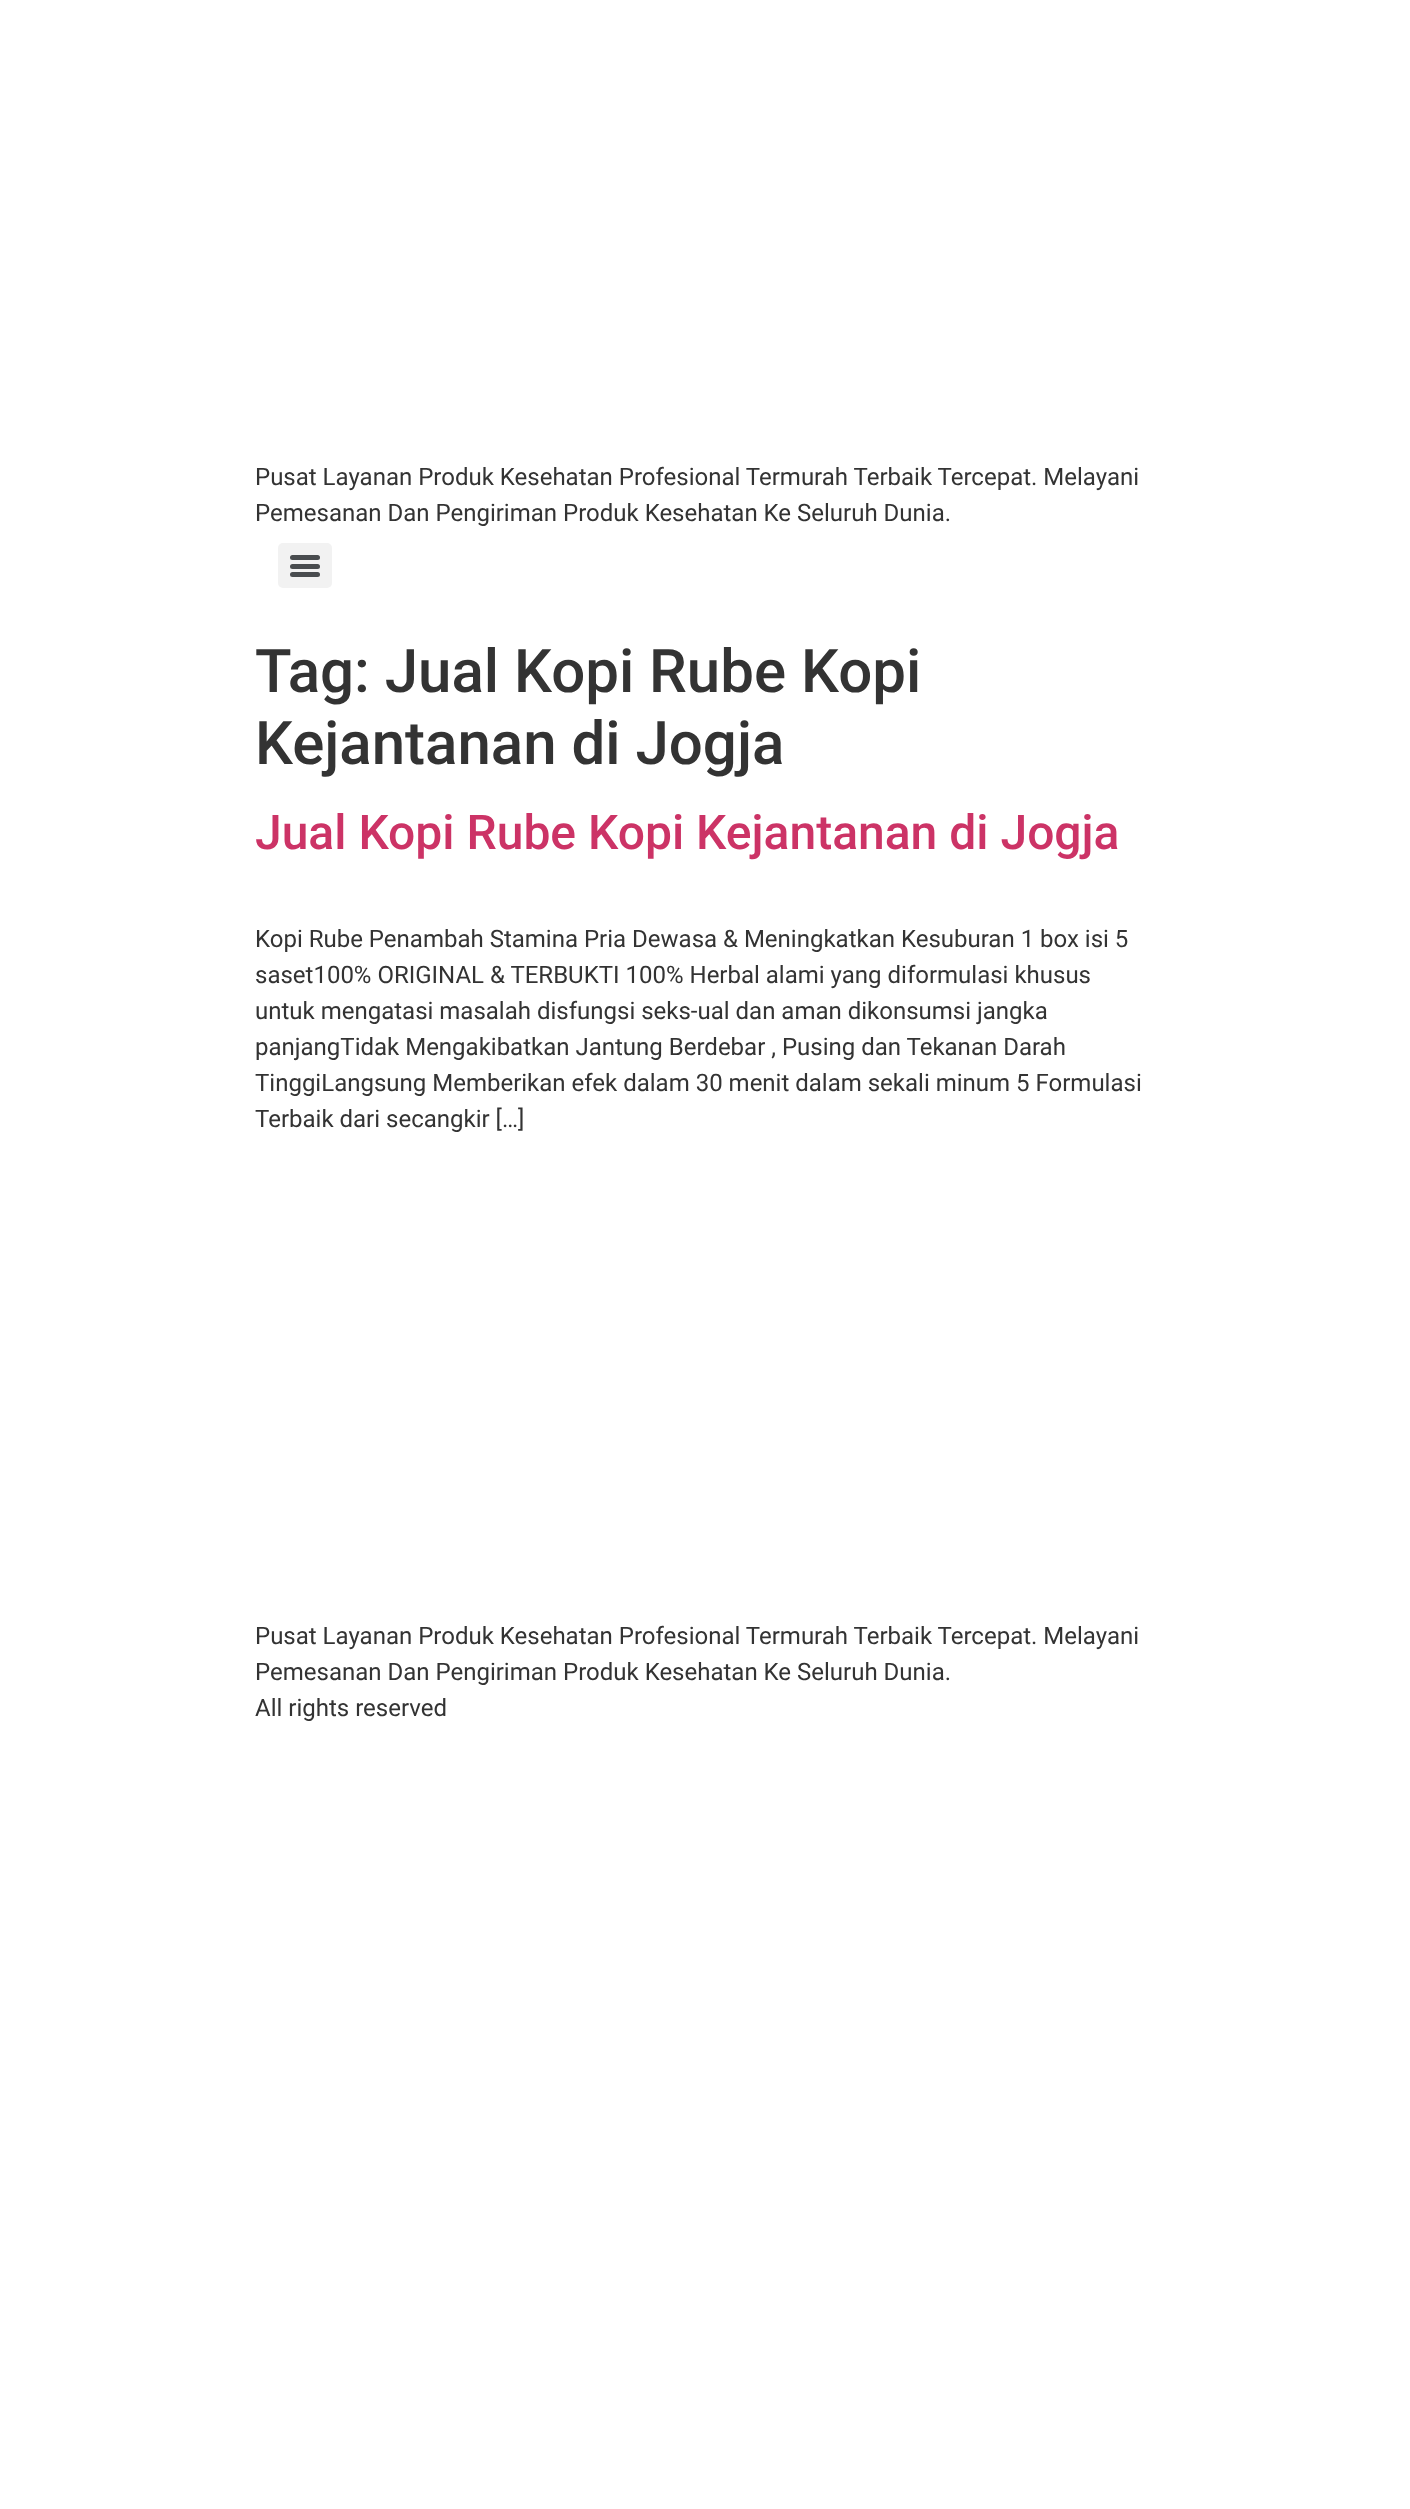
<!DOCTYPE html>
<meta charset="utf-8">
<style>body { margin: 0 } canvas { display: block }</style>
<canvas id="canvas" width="1410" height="2509"></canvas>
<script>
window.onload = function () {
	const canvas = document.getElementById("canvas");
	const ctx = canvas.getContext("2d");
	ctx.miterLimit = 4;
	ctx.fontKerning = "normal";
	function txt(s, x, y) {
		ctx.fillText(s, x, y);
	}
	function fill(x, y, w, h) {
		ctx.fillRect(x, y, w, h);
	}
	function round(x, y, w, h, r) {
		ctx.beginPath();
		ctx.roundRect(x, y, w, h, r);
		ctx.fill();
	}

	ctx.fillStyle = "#FFFFFF";
	fill(0, 0, 1410, 2509);
	ctx.fillStyle = "#F2F2F2";
	round(278, 543, 54, 45, 5);
	ctx.fillStyle = "#494C4F";
	round(290, 564, 30, 5, 2.5);
	round(290, 555, 30, 5, 2.5);
	round(290, 572, 30, 5, 2.5);
	ctx.font = "24px Roboto";
	ctx.fillStyle = "#333333";
	txt("Pusat Layanan Produk Kesehatan Profesional Termurah Terbaik Tercepat. Melayani", 255, 485);
	txt("Pemesanan Dan Pengiriman Produk Kesehatan Ke Seluruh Dunia.", 255, 521);
	ctx.font = "500 60px Roboto";
	txt("Tag: Jual Kopi Rube Kopi", 255, 692);
	txt("Kejantanan di Jogja", 255, 764);
	ctx.font = "500 48px Roboto";
	ctx.fillStyle = "#CC3366";
	txt("Jual Kopi Rube Kopi Kejantanan di Jogja", 255, 849);
	ctx.font = "24px Roboto";
	ctx.fillStyle = "#333333";
	txt("Kopi Rube Penambah Stamina Pria Dewasa & Meningkatkan Kesuburan 1 box isi 5", 255, 947);
	txt("saset100% ORIGINAL & TERBUKTI 100% Herbal alami yang diformulasi khusus", 255, 983);
	txt("untuk mengatasi masalah disfungsi seks-ual dan aman dikonsumsi jangka", 255, 1019);
	txt("panjangTidak Mengakibatkan Jantung Berdebar , Pusing dan Tekanan Darah", 255, 1055);
	txt("TinggiLangsung Memberikan efek dalam 30 menit dalam sekali minum 5 Formulasi", 255, 1091);
	txt("Terbaik dari secangkir […]", 255, 1127);
	txt("Pusat Layanan Produk Kesehatan Profesional Termurah Terbaik Tercepat. Melayani", 255, 1644);
	txt("Pemesanan Dan Pengiriman Produk Kesehatan Ke Seluruh Dunia.", 255, 1680);
	txt("All rights reserved", 255, 1716);
};
</script>
